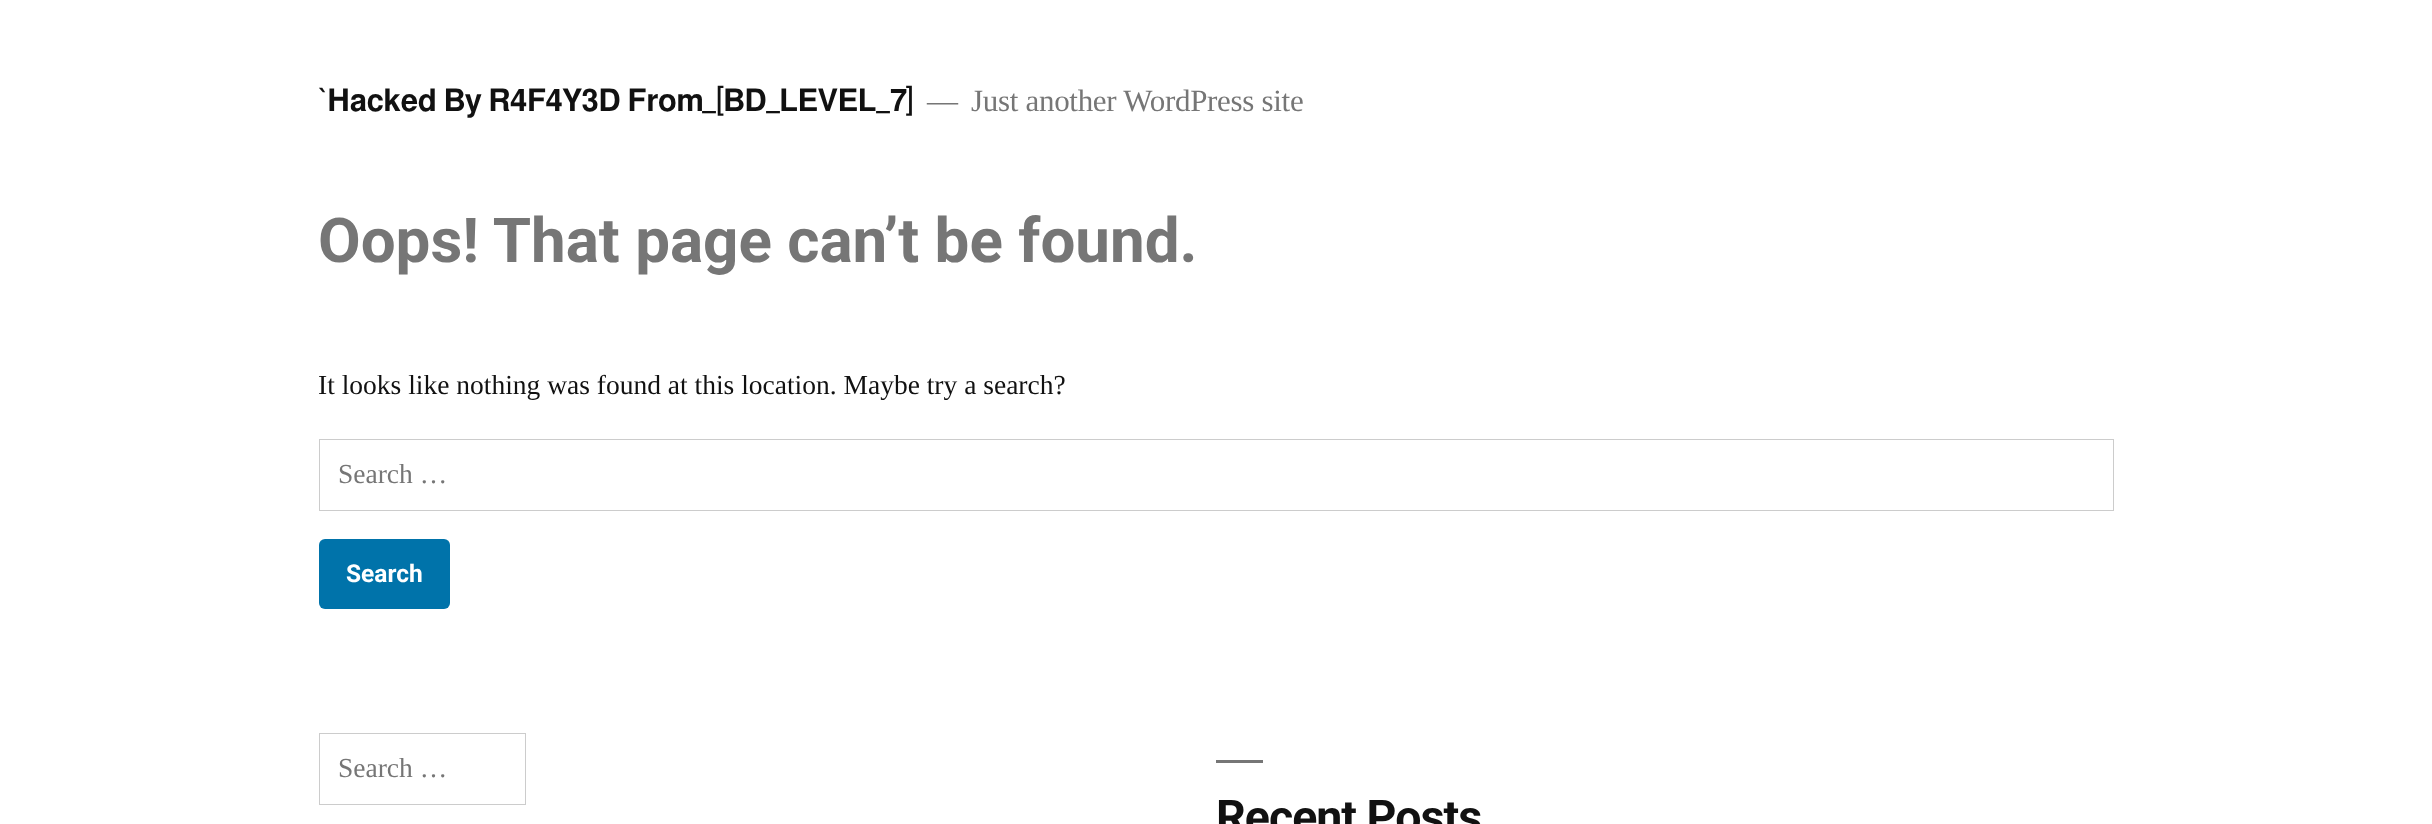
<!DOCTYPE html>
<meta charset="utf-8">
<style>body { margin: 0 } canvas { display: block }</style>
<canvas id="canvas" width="2432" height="824"></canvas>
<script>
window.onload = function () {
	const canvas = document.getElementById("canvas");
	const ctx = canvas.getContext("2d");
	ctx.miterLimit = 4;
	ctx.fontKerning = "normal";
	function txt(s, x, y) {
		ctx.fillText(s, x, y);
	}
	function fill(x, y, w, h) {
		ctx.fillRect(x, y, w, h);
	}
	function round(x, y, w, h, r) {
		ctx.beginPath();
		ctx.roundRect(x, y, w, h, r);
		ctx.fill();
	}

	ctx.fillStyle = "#FFFFFF";
	fill(0, 0, 2432, 824);
	ctx.strokeStyle = "#CCCCCC";
	ctx.strokeRect(319.5, 439.5, 1794, 71);
	ctx.fillStyle = "#0073AA";
	round(319, 539, 131, 70, 6);
	ctx.strokeRect(319.5, 733.5, 206, 71);
	ctx.fillStyle = "#767676";
	fill(1216, 760, 47, 3);
	ctx.letterSpacing = "-0.6px";
	ctx.font = "31px Roboto";
	ctx.fillStyle = "#111111";
	txt("`", 318, 111);
	ctx.font = "31px FreeSans";
	txt("𝐇𝐚𝐜𝐤𝐞𝐝 𝐁𝐲 𝐑𝟒𝐅𝟒𝐘𝟑𝐃 𝐅𝐫𝐨𝐦", 327, 111);
	ctx.font = "31px Roboto";
	txt("_[", 702, 111);
	ctx.font = "31px FreeSans";
	txt("𝐁𝐃", 723, 111);
	txt("𝐋𝐄𝐕𝐄𝐋", 779, 111);
	txt("𝟕", 890, 111);
	ctx.font = "31px Roboto";
	txt("]", 906, 111);
	ctx.letterSpacing = "-0.3px";
	ctx.font = "31px Liberation Serif";
	ctx.fillStyle = "#767676";
	txt("—", 927, 111);
	txt("Just another WordPress site", 971, 111);
	ctx.letterSpacing = "-0.6px";
	ctx.font = "31px Roboto";
	ctx.fillStyle = "#111111";
	txt("_", 766, 111);
	txt("_", 876, 111);
	ctx.letterSpacing = "0px";
	ctx.font = "bold 61.9px Roboto";
	ctx.fillStyle = "#767676";
	txt("Oops! That page can’t be found.", 318, 262);
	ctx.font = "27.5px Liberation Serif";
	ctx.fillStyle = "#111111";
	txt("It looks like nothing was found at this location. Maybe try a search?", 318, 394);
	ctx.fillStyle = "#767676";
	txt("Search …", 338, 483);
	ctx.font = "bold 24.5px Roboto";
	ctx.fillStyle = "#FFFFFF";
	txt("Search", 346, 582);
	ctx.font = "27.5px Liberation Serif";
	ctx.fillStyle = "#767676";
	txt("Search …", 338, 777);
	ctx.letterSpacing = "-1px";
	ctx.font = "bold 46.5px Roboto";
	ctx.fillStyle = "#111111";
	txt("Recent Posts", 1216, 833);
};
</script>
